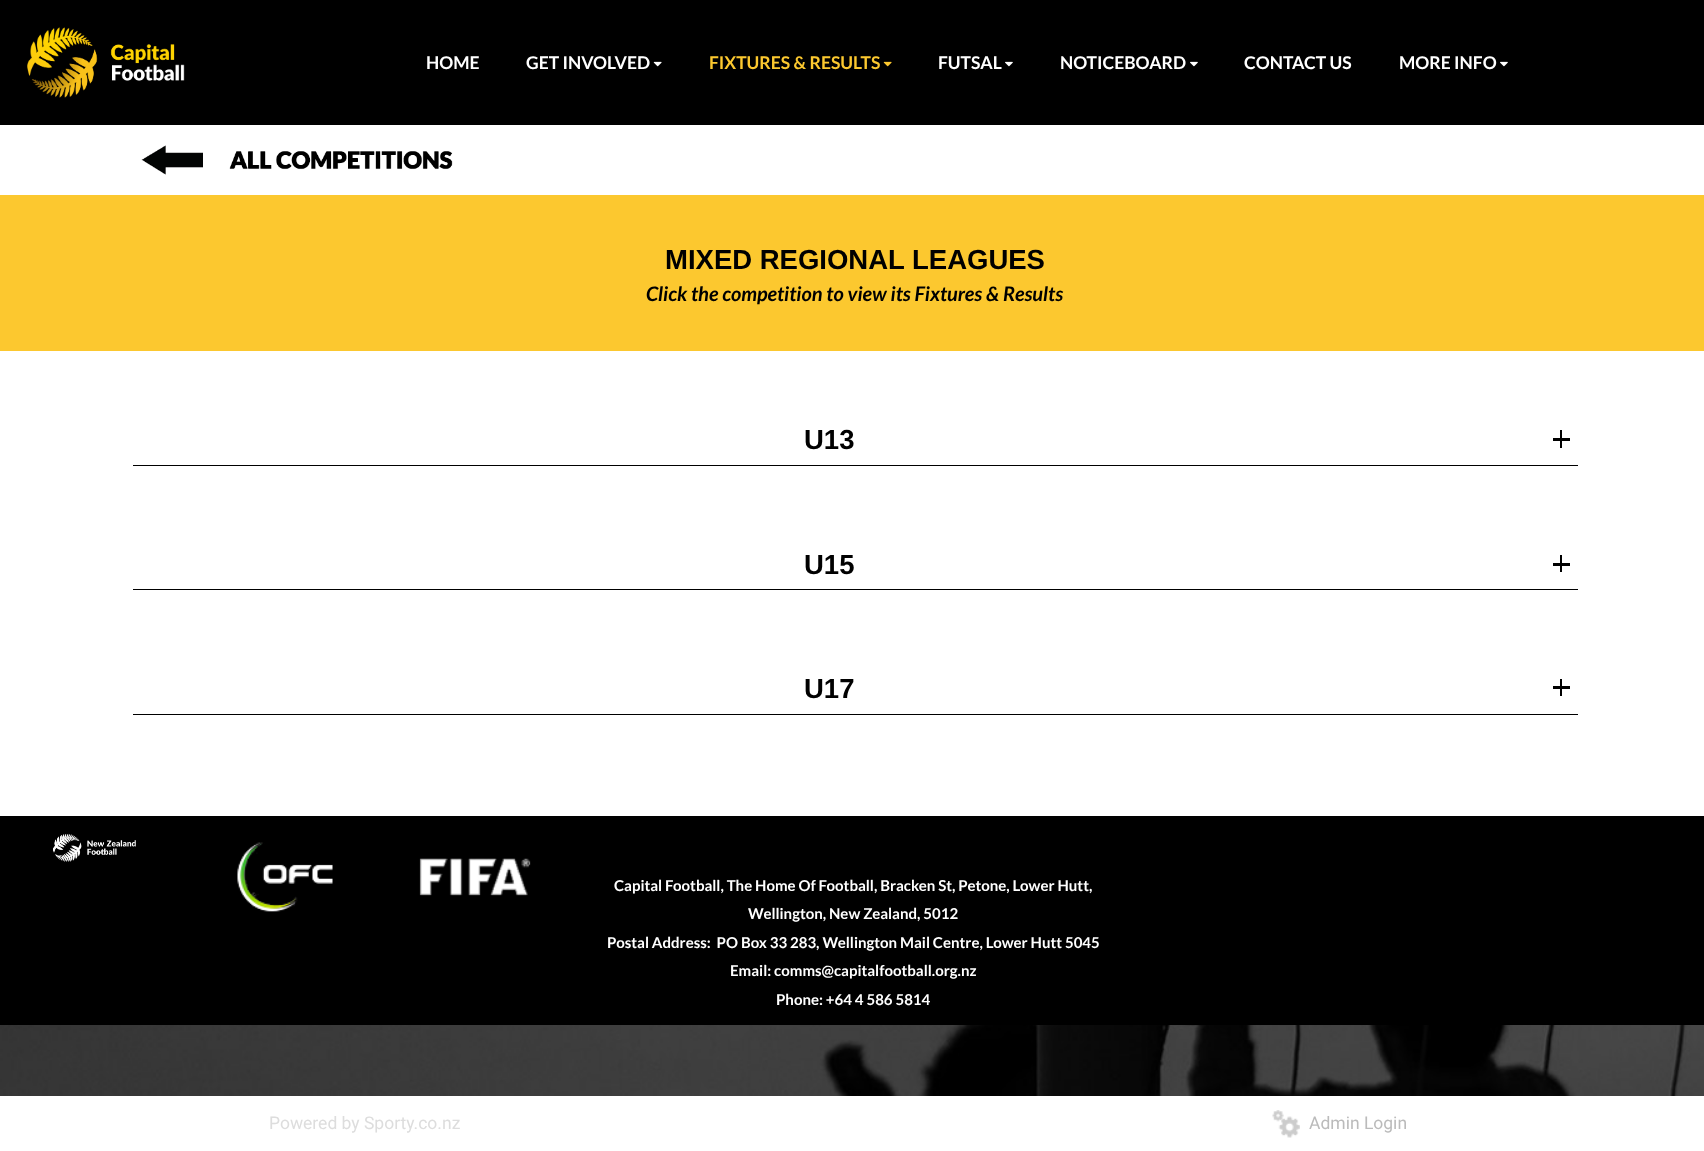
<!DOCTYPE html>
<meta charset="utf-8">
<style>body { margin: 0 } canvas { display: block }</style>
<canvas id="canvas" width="1704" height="1151"></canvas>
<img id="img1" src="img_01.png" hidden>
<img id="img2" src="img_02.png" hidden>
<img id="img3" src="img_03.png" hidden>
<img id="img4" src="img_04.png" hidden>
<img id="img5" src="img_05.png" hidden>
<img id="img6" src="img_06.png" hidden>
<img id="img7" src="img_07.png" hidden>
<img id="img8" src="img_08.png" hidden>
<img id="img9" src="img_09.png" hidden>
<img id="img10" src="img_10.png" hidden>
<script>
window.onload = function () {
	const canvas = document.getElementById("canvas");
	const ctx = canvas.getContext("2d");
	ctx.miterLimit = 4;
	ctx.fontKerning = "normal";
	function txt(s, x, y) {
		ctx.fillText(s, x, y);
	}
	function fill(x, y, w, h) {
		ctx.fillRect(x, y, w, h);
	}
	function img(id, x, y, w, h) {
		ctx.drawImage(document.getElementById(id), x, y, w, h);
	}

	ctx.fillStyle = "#FFFFFF";
	fill(0, 0, 1704, 1151);
	img("img1", 0, 1025, 1704, 71);
	ctx.fillStyle = "#000000";
	fill(0, 0, 1704, 125);
	img("img2", 27, 27, 158, 71);
	img("img3", 653, 61, 9, 6);
	img("img4", 883, 61, 9, 6);
	img("img5", 1005, 61, 8, 6);
	img("img5", 1190, 61, 8, 6);
	img("img5", 1500, 61, 8, 6);
	img("img6", 141, 145, 312, 30);
	ctx.fillStyle = "#FCC82F";
	fill(0, 195, 1704, 156);
	ctx.fillStyle = "#000000";
	fill(1553, 438, 17, 3);
	fill(1560, 430, 2, 18);
	fill(133, 465, 1445, 1);
	fill(1553, 563, 17, 3);
	fill(1560, 555, 2, 17);
	fill(133, 589, 1445, 1);
	fill(1553, 686, 17, 3);
	fill(1560, 679, 2, 17);
	fill(133, 714, 1445, 1);
	fill(0, 816, 1704, 209);
	img("img7", 53, 833, 83, 29);
	img("img8", 237, 842, 96, 70);
	img("img9", 419, 858, 112, 38);
	img("img10", 1272, 1110, 28, 28);
	ctx.font = "bold 17.5px Lato";
	ctx.fillStyle = "#FFFFFF";
	txt("HOME", 426, 69);
	txt("GET INVOLVED", 526, 69);
	ctx.fillStyle = "#FCC82F";
	txt("FIXTURES & RESULTS", 709, 69);
	ctx.fillStyle = "#FFFFFF";
	txt("FUTSAL", 938, 69);
	txt("NOTICEBOARD", 1060, 69);
	txt("CONTACT US", 1244, 69);
	txt("MORE INFO", 1399, 69);
	ctx.font = "bold 27.5px Liberation Sans";
	ctx.fillStyle = "#000000";
	txt("MIXED REGIONAL LEAGUES", 665, 269);
	ctx.font = "italic bold 20px Lato";
	txt("Click the competition to view its Fixtures & Results", 646, 301);
	ctx.font = "bold 27.5px Liberation Sans";
	txt("U13", 804, 449);
	txt("U15", 804, 574);
	txt("U17", 804, 698);
	ctx.font = "bold 15px Lato";
	ctx.fillStyle = "#FFFFFF";
	txt("Capital Football, The Home Of Football, Bracken St, Petone, Lower Hutt,", 614, 891);
	txt("Wellington, New Zealand, 5012", 748, 919);
	txt("Postal Address:  PO Box 33 283, Wellington Mail Centre, Lower Hutt 5045", 607, 948);
	txt("Email: comms@capitalfootball.org.nz", 730, 976);
	txt("Phone: +64 4 586 5814", 776, 1005);
	ctx.font = "17.5px Roboto";
	ctx.fillStyle = "#DDDDDD";
	txt("Powered by Sporty.co.nz", 269, 1129);
	ctx.fillStyle = "#BBBBBB";
	txt("Admin Login", 1309, 1129);
};
</script>
